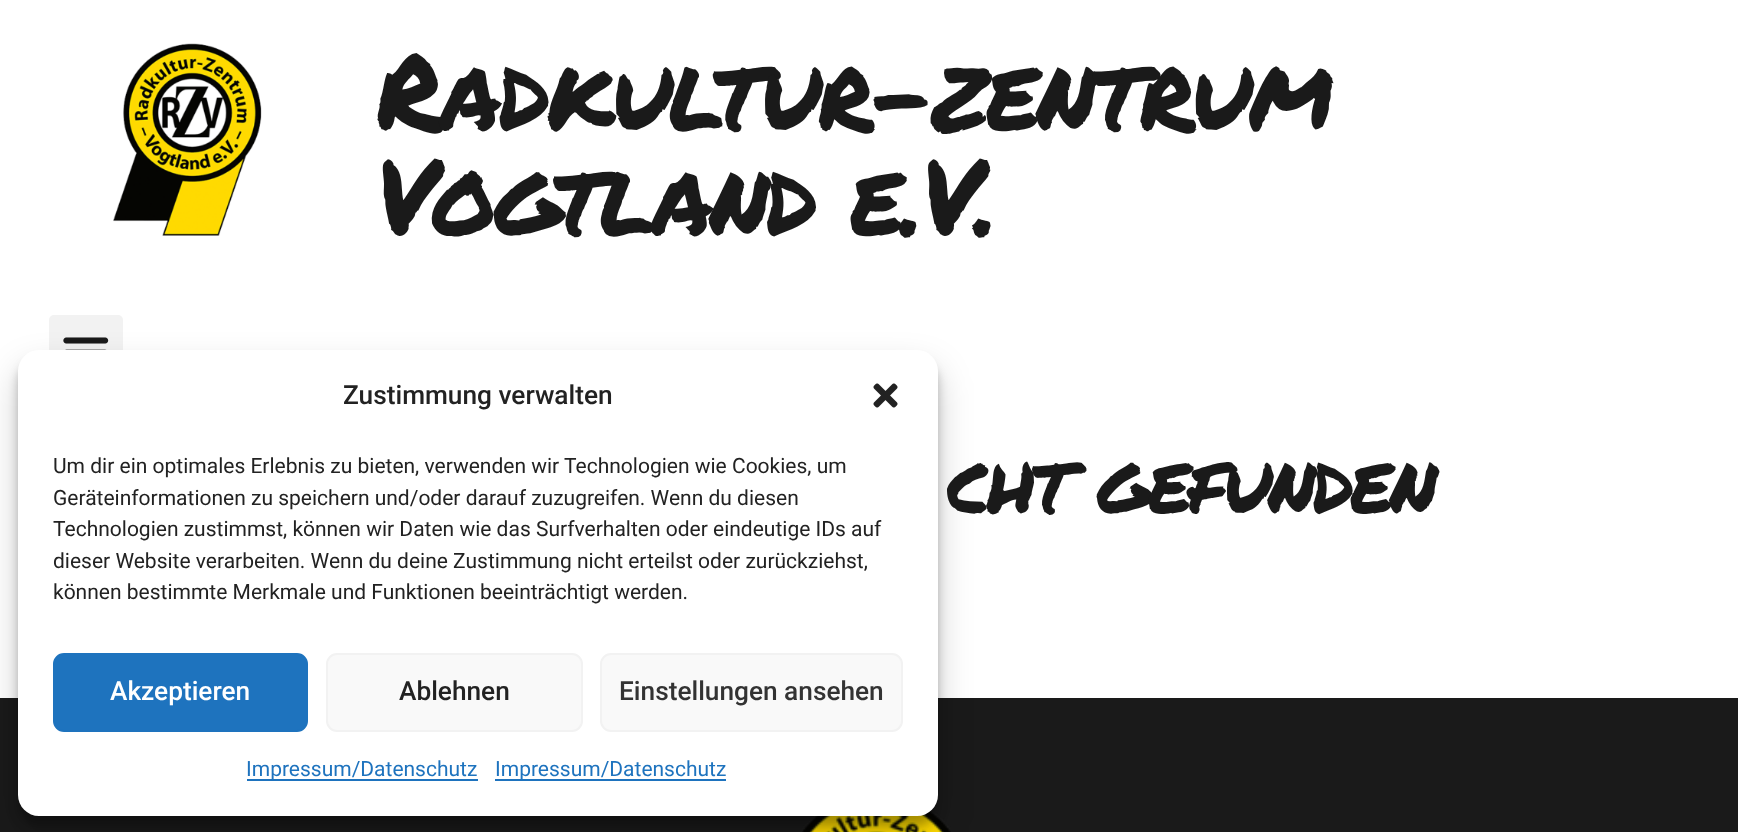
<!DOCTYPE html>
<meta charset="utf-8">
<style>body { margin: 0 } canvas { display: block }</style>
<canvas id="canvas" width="1738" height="832"></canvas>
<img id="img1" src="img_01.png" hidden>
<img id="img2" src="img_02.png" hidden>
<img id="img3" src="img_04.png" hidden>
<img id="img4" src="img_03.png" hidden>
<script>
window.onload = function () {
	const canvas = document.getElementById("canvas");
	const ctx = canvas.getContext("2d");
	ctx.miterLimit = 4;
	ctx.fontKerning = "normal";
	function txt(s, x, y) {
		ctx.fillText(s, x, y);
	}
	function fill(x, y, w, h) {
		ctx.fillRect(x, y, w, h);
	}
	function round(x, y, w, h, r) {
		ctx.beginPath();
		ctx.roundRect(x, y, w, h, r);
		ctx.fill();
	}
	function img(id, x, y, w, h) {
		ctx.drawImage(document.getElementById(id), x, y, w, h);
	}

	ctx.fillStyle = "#FFFFFF";
	fill(0, 0, 1738, 832);
	img("img1", 113, 43, 149, 193);
	ctx.fillStyle = "#F2F2F2";
	round(49, 315, 74, 74, 5);
	img("img2", 63, 337, 46, 13);
	ctx.fillStyle = "#1A1A1A";
	fill(0, 698, 1738, 134);
	img("img3", 802, 809, 149, 23);
	ctx.fillStyle = "rgba(0, 0, 0, 0.23)";
	ctx.filter = "blur(5px)";
	ctx.beginPath();
	ctx.roundRect(18, 361, 920, 465, 21);
	ctx.fill();
	ctx.filter = "none";
	ctx.fillStyle = "rgba(0, 0, 0, 0.19)";
	ctx.filter = "blur(17.5px)";
	ctx.beginPath();
	ctx.roundRect(18, 368, 920, 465, 21);
	ctx.fill();
	ctx.filter = "none";
	ctx.fillStyle = "#FFFFFF";
	round(18, 350, 920, 466, 21);
	img("img4", 873, 383, 25, 25);
	ctx.fillStyle = "#1E73BE";
	ctx.beginPath();
	ctx.roundRect(54, 654, 253, 77, 10);
	ctx.fill();
	ctx.strokeStyle = "#1E73BE";
	ctx.lineWidth = 2;
	ctx.stroke();
	ctx.fillStyle = "#F9F9F9";
	ctx.beginPath();
	ctx.roundRect(327, 654, 255, 77, 10);
	ctx.fill();
	ctx.strokeStyle = "#F2F2F2";
	ctx.stroke();
	ctx.beginPath();
	ctx.roundRect(601, 654, 301, 77, 10);
	ctx.fill();
	ctx.stroke();
	ctx.fillStyle = "#1E73BE";
	fill(247, 779, 231, 2);
	fill(495, 779, 231, 2);
	ctx.letterSpacing = "-3.5px";
	ctx.font = "105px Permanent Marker";
	ctx.fillStyle = "#1A1A1A";
	txt("Radkultur-zentrum", 376, 130);
	txt("Vogtland e.V.", 376, 235);
	ctx.letterSpacing = "0px";
	ctx.font = "500 26.25px Roboto";
	ctx.fillStyle = "#222222";
	txt("Zustimmung verwalten", 343, 404);
	ctx.font = "21px Roboto";
	txt("Um dir ein optimales Erlebnis zu bieten, verwenden wir Technologien wie Cookies, um", 53, 473);
	txt("Geräteinformationen zu speichern und/oder darauf zuzugreifen. Wenn du diesen", 53, 505);
	txt("Technologien zustimmst, können wir Daten wie das Surfverhalten oder eindeutige IDs auf", 53, 536);
	txt("dieser Website verarbeiten. Wenn du deine Zustimmung nicht erteilst oder zurückziehst,", 53, 568);
	txt("können bestimmte Merkmale und Funktionen beeinträchtigt werden.", 53, 599);
	ctx.font = "500 26.25px Roboto";
	ctx.fillStyle = "#FFFFFF";
	txt("Akzeptieren", 110, 700);
	ctx.fillStyle = "#222222";
	txt("Ablehnen", 399, 700);
	ctx.fillStyle = "#333333";
	txt("Einstellungen ansehen", 619, 700);
	ctx.font = "21px Roboto";
	ctx.fillStyle = "#1E73BE";
	txt("Impressum/Datenschutz", 246, 776);
	txt("Impressum/Datenschutz", 495, 776);
	ctx.letterSpacing = "-3.5px";
	ctx.font = "84px Permanent Marker";
	ctx.fillStyle = "#1A1A1A";
	txt("cht gefunden", 947, 513);
};
</script>
